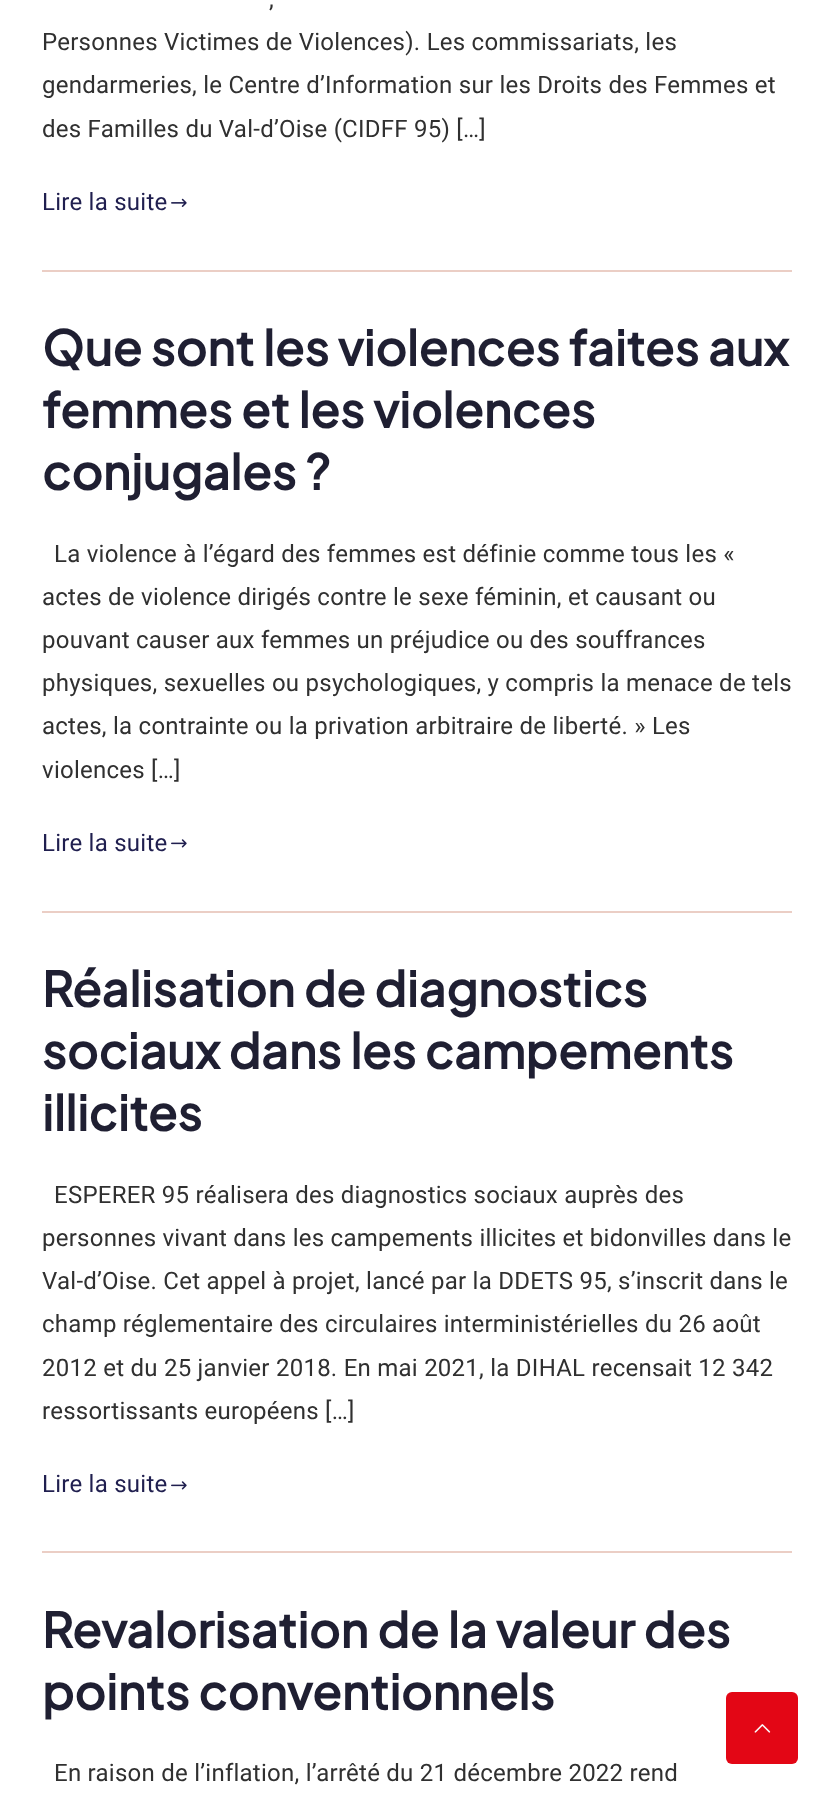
<!DOCTYPE html>
<meta charset="utf-8">
<style>body { margin: 0 } canvas { display: block }</style>
<canvas id="canvas" width="833" height="1815"></canvas>
<img id="img1" src="img_01.png" hidden>
<img id="img2" src="img_02.png" hidden>
<img id="img3" src="img_03.png" hidden>
<script>
window.onload = function () {
	const canvas = document.getElementById("canvas");
	const ctx = canvas.getContext("2d");
	ctx.miterLimit = 4;
	ctx.fontKerning = "normal";
	function txt(s, x, y) {
		ctx.fillText(s, x, y);
	}
	function fill(x, y, w, h) {
		ctx.fillRect(x, y, w, h);
	}
	function round(x, y, w, h, r) {
		ctx.beginPath();
		ctx.roundRect(x, y, w, h, r);
		ctx.fill();
	}
	function img(id, x, y, w, h) {
		ctx.drawImage(document.getElementById(id), x, y, w, h);
	}

	ctx.fillStyle = "#FFFFFF";
	fill(0, 0, 833, 1815);
	ctx.fillStyle = "#EBCEC5";
	fill(42, 270, 750, 2);
	img("img1", 171, 198, 16, 9);
	fill(42, 911, 750, 2);
	img("img2", 171, 839, 16, 9);
	fill(42, 1551, 750, 2);
	img("img2", 171, 1481, 16, 9);
	ctx.fillStyle = "#E30615";
	round(726, 1692, 72, 72, 6);
	img("img3", 754, 1724, 17, 9);
	ctx.letterSpacing = "0.25px";
	ctx.font = "24px Roboto";
	ctx.fillStyle = "#303030";
	txt(",", 269, 7);
	txt("Personnes Victimes de Violences). Les commissariats, les", 42, 50);
	txt("gendarmeries, le Centre d’Information sur les Droits des Femmes et", 42, 93);
	txt("des Familles du Val-d’Oise (CIDFF 95) […]", 42, 137);
	ctx.fillStyle = "#201F4F";
	txt("Lire la suite", 42, 210);
	ctx.font = "bold 48px Plus Jakarta Sans";
	ctx.fillStyle = "#1F1F32";
	txt("Que sont les violences faites aux", 42, 366);
	txt("femmes et les violences", 42, 428);
	txt("conjugales ?", 42, 490);
	ctx.font = "24px Roboto";
	ctx.fillStyle = "#303030";
	txt("La violence à l’égard des femmes est définie comme tous les «", 54, 562);
	txt("actes de violence dirigés contre le sexe féminin, et causant ou", 42, 605);
	txt("pouvant causer aux femmes un préjudice ou des souffrances", 42, 648);
	txt("physiques, sexuelles ou psychologiques, y compris la menace de tels", 42, 691);
	txt("actes, la contrainte ou la privation arbitraire de liberté. » Les", 42, 734);
	txt("violences […]", 42, 778);
	ctx.fillStyle = "#201F4F";
	txt("Lire la suite", 42, 851);
	ctx.font = "bold 48px Plus Jakarta Sans";
	ctx.fillStyle = "#1F1F32";
	txt("Réalisation de diagnostics", 42, 1007);
	txt("sociaux dans les campements", 42, 1069);
	txt("illicites", 42, 1131);
	ctx.font = "24px Roboto";
	ctx.fillStyle = "#303030";
	txt("ESPERER 95 réalisera des diagnostics sociaux auprès des", 54, 1203);
	txt("personnes vivant dans les campements illicites et bidonvilles dans le", 42, 1246);
	txt("Val-d’Oise. Cet appel à projet, lancé par la DDETS 95, s’inscrit dans le", 42, 1289);
	txt("champ réglementaire des circulaires interministérielles du 26 août", 42, 1332);
	txt("2012 et du 25 janvier 2018. En mai 2021, la DIHAL recensait 12 342", 42, 1376);
	txt("ressortissants européens […]", 42, 1419);
	ctx.fillStyle = "#201F4F";
	txt("Lire la suite", 42, 1492);
	ctx.font = "bold 48px Plus Jakarta Sans";
	ctx.fillStyle = "#1F1F32";
	txt("Revalorisation de la valeur des", 42, 1648);
	txt("points conventionnels", 42, 1710);
	ctx.font = "24px Roboto";
	ctx.fillStyle = "#303030";
	txt("En raison de l’inflation, l’arrêté du 21 décembre 2022 rend", 54, 1781);
};
</script>
